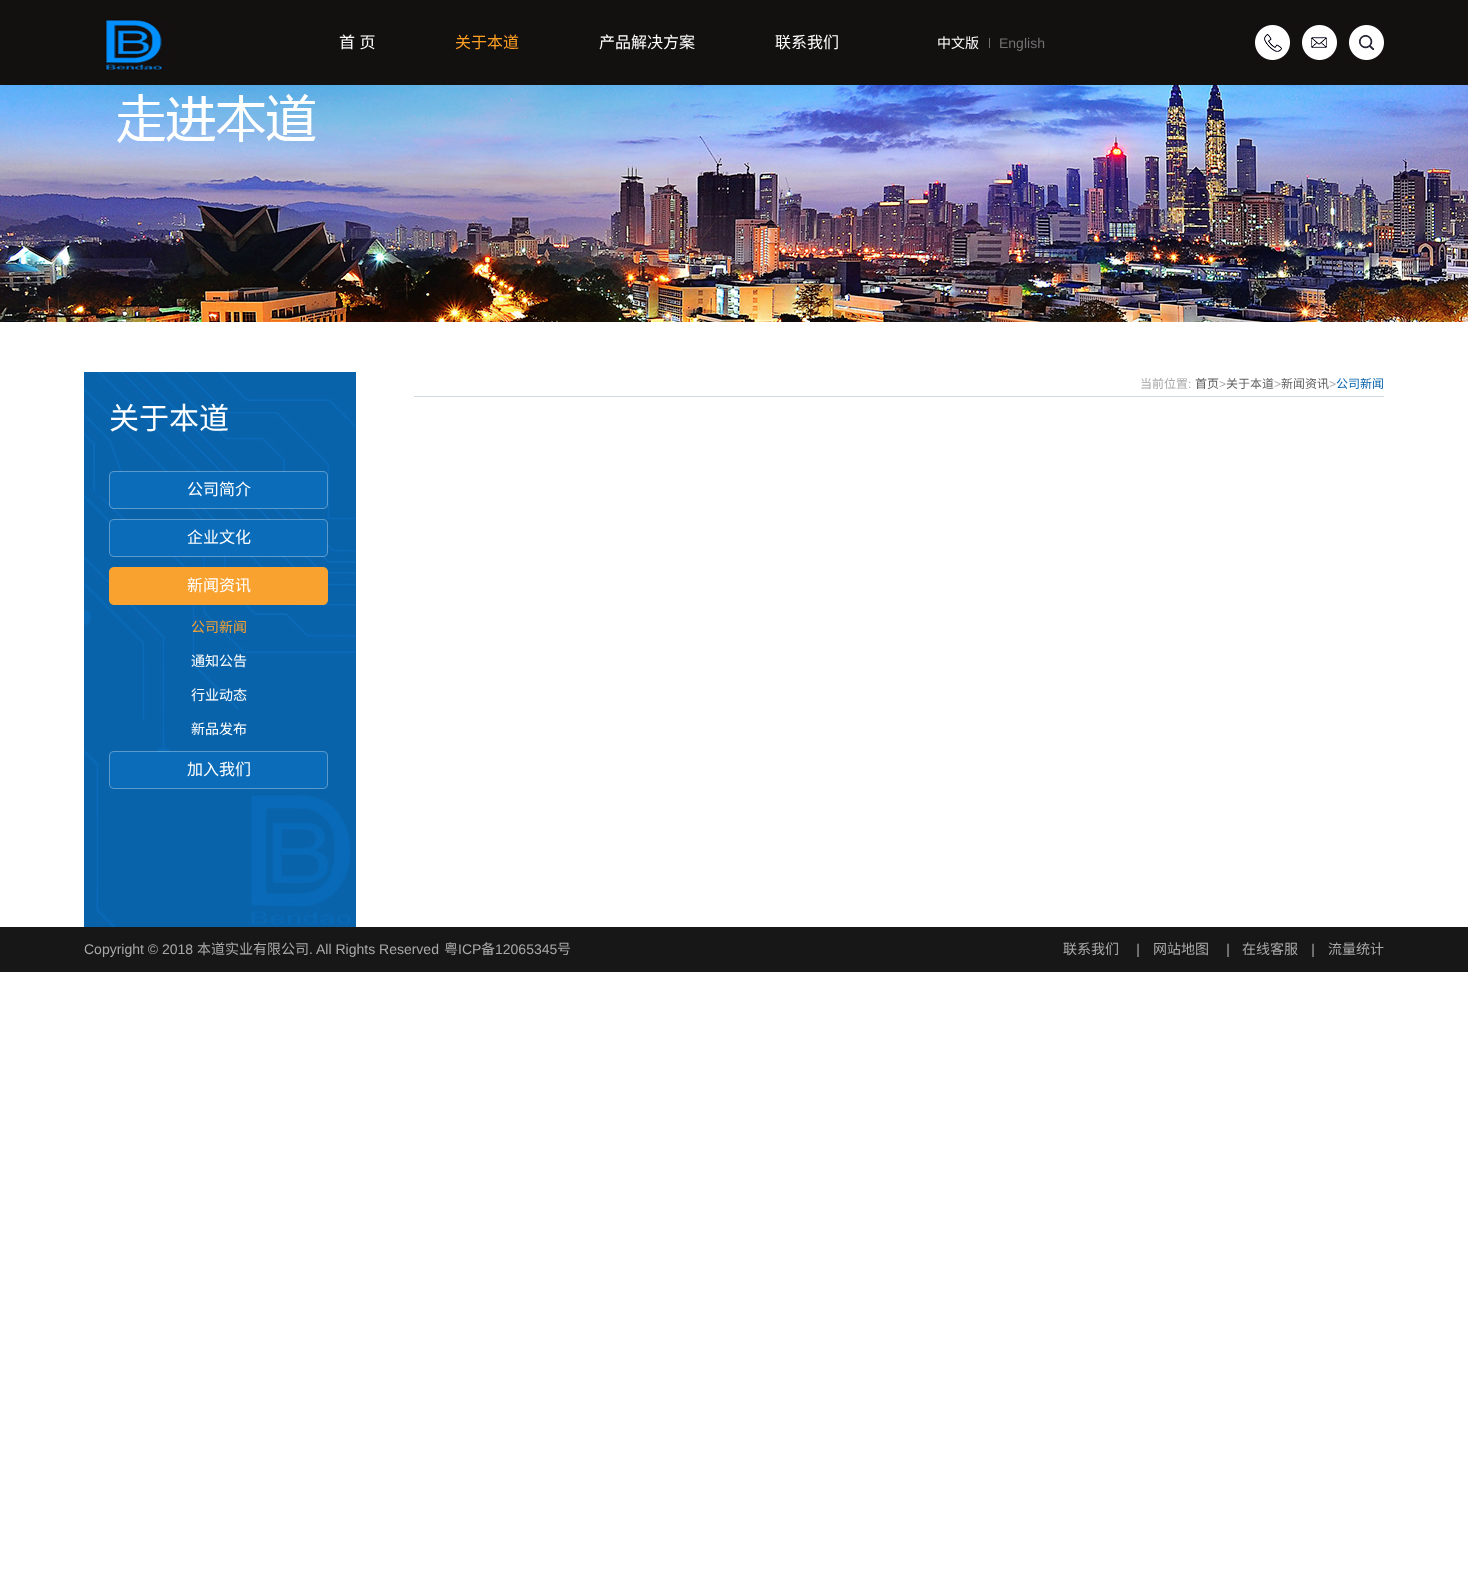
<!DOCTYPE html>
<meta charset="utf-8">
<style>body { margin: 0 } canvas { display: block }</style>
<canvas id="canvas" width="1468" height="1596"></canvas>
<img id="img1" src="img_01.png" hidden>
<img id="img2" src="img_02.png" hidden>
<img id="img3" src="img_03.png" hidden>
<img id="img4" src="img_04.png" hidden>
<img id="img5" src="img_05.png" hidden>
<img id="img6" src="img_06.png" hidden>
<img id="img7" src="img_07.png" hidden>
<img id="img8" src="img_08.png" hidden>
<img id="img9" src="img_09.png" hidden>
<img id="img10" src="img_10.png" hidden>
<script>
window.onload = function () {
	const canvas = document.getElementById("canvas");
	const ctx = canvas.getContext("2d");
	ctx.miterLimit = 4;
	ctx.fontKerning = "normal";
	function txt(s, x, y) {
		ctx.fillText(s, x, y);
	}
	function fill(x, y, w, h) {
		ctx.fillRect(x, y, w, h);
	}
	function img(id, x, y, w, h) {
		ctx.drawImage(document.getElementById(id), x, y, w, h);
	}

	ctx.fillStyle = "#FFFFFF";
	fill(0, 0, 1468, 1596);
	ctx.fillStyle = "#131010";
	fill(0, 0, 1468, 85);
	img("img1", 105, 19, 64, 52);
	ctx.fillStyle = "#717171";
	fill(989, 38, 1, 10);
	img("img2", 1255, 25, 35, 35);
	img("img3", 1302, 25, 35, 35);
	img("img4", 1349, 25, 35, 35);
	img("img5", 0, 85, 1468, 237);
	ctx.fillStyle = "#D2DBE3";
	fill(414, 396, 970, 1);
	img("img6", 84, 372, 272, 555);
	img("img7", 109, 471, 219, 38);
	img("img8", 109, 519, 219, 38);
	img("img9", 109, 567, 219, 38);
	img("img10", 109, 751, 219, 38);
	ctx.fillStyle = "#171718";
	fill(0, 927, 1468, 45);
	ctx.wordSpacing = "1px";
	ctx.font = "16px Noto Sans CJK SC";
	ctx.fillStyle = "#FFFFFF";
	txt("首 页", 339, 48);
	ctx.wordSpacing = "0px";
	ctx.fillStyle = "#FFA024";
	txt("关于本道", 455, 48);
	ctx.fillStyle = "#FFFFFF";
	txt("产品解决方案", 599, 48);
	txt("联系我们", 775, 48);
	ctx.font = "14px Noto Sans CJK SC";
	txt("中文版", 937, 48);
	ctx.font = "14px Liberation Sans";
	ctx.fillStyle = "#717171";
	txt("English", 999, 48);
	ctx.font = "12px Noto Sans CJK SC";
	ctx.fillStyle = "#A9A9A9";
	txt("当前位置", 1140, 388);
	ctx.font = "12px Liberation Sans";
	txt(":", 1188, 388);
	ctx.font = "12px Noto Sans CJK SC";
	ctx.fillStyle = "#5F5F5F";
	txt("首页", 1195, 388);
	ctx.font = "12px Liberation Sans";
	ctx.fillStyle = "#A9A9A9";
	txt(">", 1219, 388);
	ctx.font = "12px Noto Sans CJK SC";
	ctx.fillStyle = "#5F5F5F";
	txt("关于本道", 1226, 388);
	ctx.font = "12px Liberation Sans";
	ctx.fillStyle = "#A9A9A9";
	txt(">", 1274, 388);
	ctx.font = "12px Noto Sans CJK SC";
	ctx.fillStyle = "#5F5F5F";
	txt("新闻资讯", 1281, 388);
	ctx.font = "12px Liberation Sans";
	ctx.fillStyle = "#A9A9A9";
	txt(">", 1329, 388);
	ctx.font = "12px Noto Sans CJK SC";
	ctx.fillStyle = "#0963AB";
	txt("公司新闻", 1336, 388);
	ctx.font = "30px Noto Sans CJK SC";
	ctx.fillStyle = "#FFFFFF";
	txt("关于本道", 109, 429);
	ctx.font = "16px Noto Sans CJK SC";
	txt("公司简介", 187, 495);
	txt("企业文化", 187, 543);
	txt("新闻资讯", 187, 591);
	ctx.font = "14px Noto Sans CJK SC";
	ctx.fillStyle = "#FAA230";
	txt("公司新闻", 191, 632);
	ctx.fillStyle = "#FFFFFF";
	txt("通知公告", 191, 666);
	txt("行业动态", 191, 700);
	txt("新品发布", 191, 734);
	ctx.font = "16px Noto Sans CJK SC";
	txt("加入我们", 187, 775);
	ctx.font = "14px Liberation Sans";
	ctx.fillStyle = "#A9A9A9";
	txt("Copyright © 2018", 84, 954);
	ctx.font = "14px Noto Sans CJK SC";
	txt("本道实业有限公司", 197, 954);
	ctx.font = "14px Liberation Sans";
	txt(". All Rights Reserved", 309, 954);
	ctx.font = "14px Noto Sans CJK SC";
	txt("粤", 444, 954);
	ctx.font = "14px Liberation Sans";
	txt("ICP", 458, 954);
	ctx.font = "14px Noto Sans CJK SC";
	txt("备", 481, 954);
	ctx.font = "14px Liberation Sans";
	txt("12065345", 495, 954);
	ctx.font = "14px Noto Sans CJK SC";
	txt("号", 557, 954);
	txt("联系我们", 1063, 954);
	ctx.font = "italic 14px Liberation Sans";
	txt("|", 1136, 954);
	ctx.font = "14px Noto Sans CJK SC";
	txt("网站地图", 1153, 954);
	ctx.font = "italic 14px Liberation Sans";
	txt("|", 1226, 954);
	ctx.font = "14px Noto Sans CJK SC";
	txt("在线客服", 1242, 954);
	ctx.font = "italic 14px Liberation Sans";
	txt("|", 1311, 954);
	ctx.font = "14px Noto Sans CJK SC";
	txt("流量统计", 1328, 954);
};
</script>
